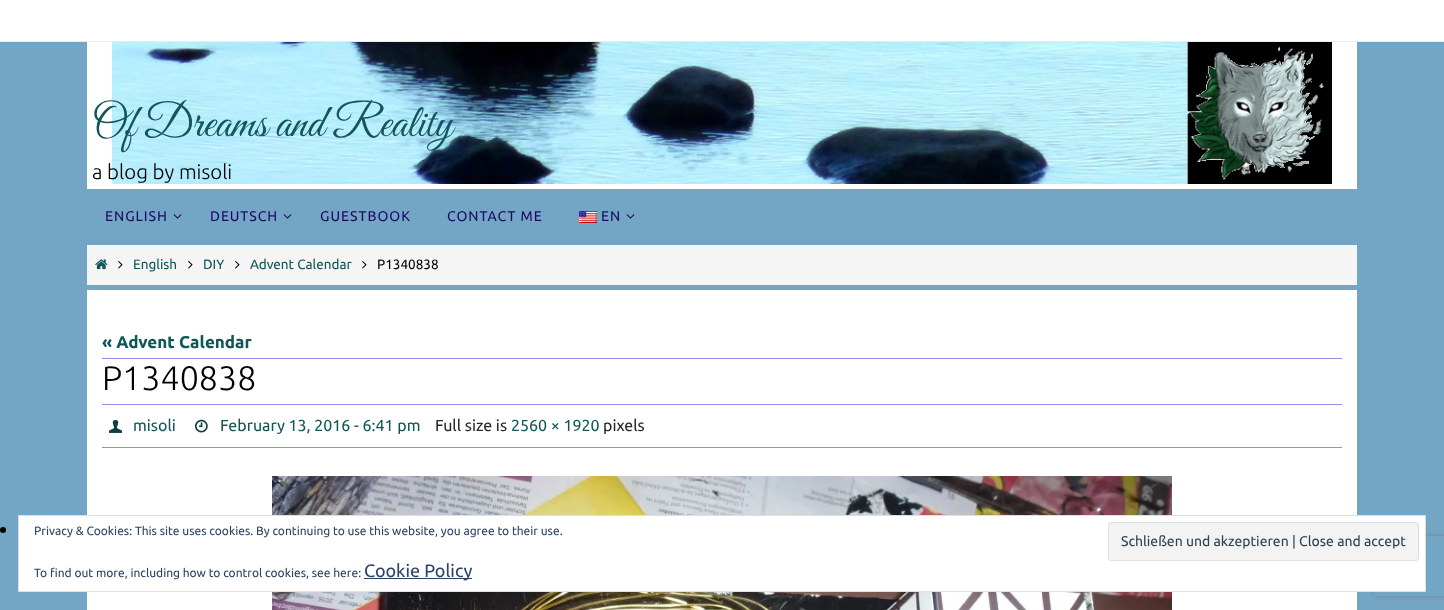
<!DOCTYPE html>
<meta charset="utf-8">
<style>body { margin: 0 } canvas { display: block }</style>
<canvas id="canvas" width="1444" height="610"></canvas>
<img id="img1" src="img_01.png" hidden>
<img id="img2" src="img_02.png" hidden>
<img id="img3" src="img_03.png" hidden>
<img id="img4" src="img_04.png" hidden>
<img id="img5" src="img_05.png" hidden>
<img id="img6" src="img_06.png" hidden>
<img id="img7" src="img_07.png" hidden>
<img id="img8" src="img_08.png" hidden>
<script>
window.onload = function () {
	const canvas = document.getElementById("canvas");
	const ctx = canvas.getContext("2d");
	ctx.miterLimit = 4;
	ctx.fontKerning = "normal";
	function txt(s, x, y) {
		ctx.fillText(s, x, y);
	}
	function fill(x, y, w, h) {
		ctx.fillRect(x, y, w, h);
	}
	function img(id, x, y, w, h) {
		ctx.drawImage(document.getElementById(id), x, y, w, h);
	}

	ctx.fillStyle = "#73A6C5";
	fill(0, 0, 1444, 610);
	ctx.fillStyle = "#FFFFFF";
	fill(0, 0, 1444, 41);
	ctx.fillStyle = "#EBEBEB";
	fill(0, 41, 1444, 1);
	ctx.fillStyle = "#FFFFFF";
	fill(87, 42, 1270, 147);
	img("img1", 112, 42, 1220, 142);
	img("img2", 173, 214, 9, 5);
	img("img2", 283, 214, 9, 5);
	img("img3", 579, 211, 18, 12);
	img("img2", 626, 214, 9, 5);
	ctx.fillStyle = "#F5F5F5";
	fill(87, 245, 1270, 40);
	img("img4", 95, 259, 13, 11);
	img("img5", 118, 261, 5, 8);
	img("img5", 188, 261, 5, 8);
	img("img5", 235, 261, 5, 8);
	img("img5", 362, 261, 5, 8);
	ctx.fillStyle = "#FFFFFF";
	fill(87, 290, 1270, 320);
	ctx.fillStyle = "#9090EC";
	fill(102, 358, 1240, 1);
	fill(102, 404, 1240, 1);
	fill(102, 447, 1240, 1);
	img("img6", 109, 419, 13, 14);
	img("img7", 195, 419, 13, 14);
	img("img8", 272, 476, 900, 134);
	ctx.fillStyle = "#000000";
	ctx.beginPath();
	ctx.arc(3, 530, 3, 0, Math.PI * 2);
	ctx.fill();
	ctx.save();
	ctx.beginPath();
	ctx.moveTo(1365, 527);
	ctx.lineTo(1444, 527);
	ctx.lineTo(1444, 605);
	ctx.lineTo(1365, 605);
	ctx.closePath();
	ctx.moveTo(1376, 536);
	ctx.lineTo(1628, 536);
	ctx.bezierCurveTo(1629, 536, 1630, 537, 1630, 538);
	ctx.lineTo(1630, 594);
	ctx.bezierCurveTo(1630, 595, 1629, 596, 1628, 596);
	ctx.lineTo(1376, 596);
	ctx.bezierCurveTo(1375, 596, 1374, 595, 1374, 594);
	ctx.lineTo(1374, 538);
	ctx.bezierCurveTo(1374, 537, 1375, 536, 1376, 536);
	ctx.closePath();
	ctx.clip("evenodd");
	ctx.fillStyle = "#808080";
	ctx.filter = "blur(2.5px)";
	ctx.beginPath();
	ctx.roundRect(1374, 536, 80, 60, 2);
	ctx.fill();
	ctx.filter = "none";
	ctx.restore();
	ctx.fillStyle = "#FFFFFF";
	ctx.beginPath();
	ctx.rect(18.5, 515.5, 1407, 76);
	ctx.fill();
	ctx.strokeStyle = "#DEDEDE";
	ctx.stroke();
	ctx.fillStyle = "#F3F3F3";
	ctx.beginPath();
	ctx.roundRect(1108.5, 522.5, 310, 38, 2.5);
	ctx.fill();
	ctx.stroke();
	ctx.fillStyle = "#2E4467";
	fill(364, 578, 108, 1);
	ctx.font = "46px Great Vibes";
	ctx.fillStyle = "#115658";
	txt("Of Dreams and Reality", 92, 136);
	ctx.font = "300 20.5px Ubuntu";
	ctx.fillStyle = "#000000";
	txt("a blog by misoli", 92, 179);
	ctx.letterSpacing = "1px";
	ctx.font = "14px Ubuntu";
	ctx.fillStyle = "#1C0A62";
	txt("ENGLISH", 105, 221);
	txt("DEUTSCH", 210, 221);
	txt("GUESTBOOK", 320, 221);
	txt("CONTACT ME", 447, 221);
	txt("EN", 601, 221);
	ctx.letterSpacing = "0px";
	ctx.font = "13.5px Ubuntu";
	ctx.fillStyle = "#115658";
	txt("English", 133, 269);
	txt("DIY", 203, 269);
	txt("Advent Calendar", 250, 269);
	ctx.fillStyle = "#000000";
	txt("P1340838", 377, 269);
	ctx.font = "bold 17px Ubuntu";
	ctx.fillStyle = "#115658";
	txt("« Advent Calendar", 102, 348);
	ctx.font = "300 34px Ubuntu";
	ctx.fillStyle = "#000000";
	txt("P1340838", 102, 390);
	ctx.font = "16px Ubuntu";
	ctx.fillStyle = "#115658";
	txt("misoli", 133, 431);
	txt("February 13, 2016 - 6:41 pm", 220, 431);
	ctx.fillStyle = "#282828";
	txt("Full size is", 435, 431);
	ctx.fillStyle = "#115658";
	txt("2560 × 1920", 511, 431);
	ctx.fillStyle = "#282828";
	txt("pixels", 603, 431);
	ctx.font = "12px Ubuntu";
	ctx.fillStyle = "#2E4467";
	txt("Privacy & Cookies: This site uses cookies. By continuing to use this website, you agree to their use.", 34, 535);
	ctx.font = "14px Ubuntu";
	ctx.fillStyle = "#2E4453";
	txt("Schließen und akzeptieren | Close and accept", 1121, 546);
	ctx.font = "12px Ubuntu";
	ctx.fillStyle = "#2E4467";
	txt("To find out more, including how to control cookies, see here:", 34, 577);
	ctx.font = "18px Ubuntu";
	txt("Cookie Policy", 364, 577);
};
</script>
